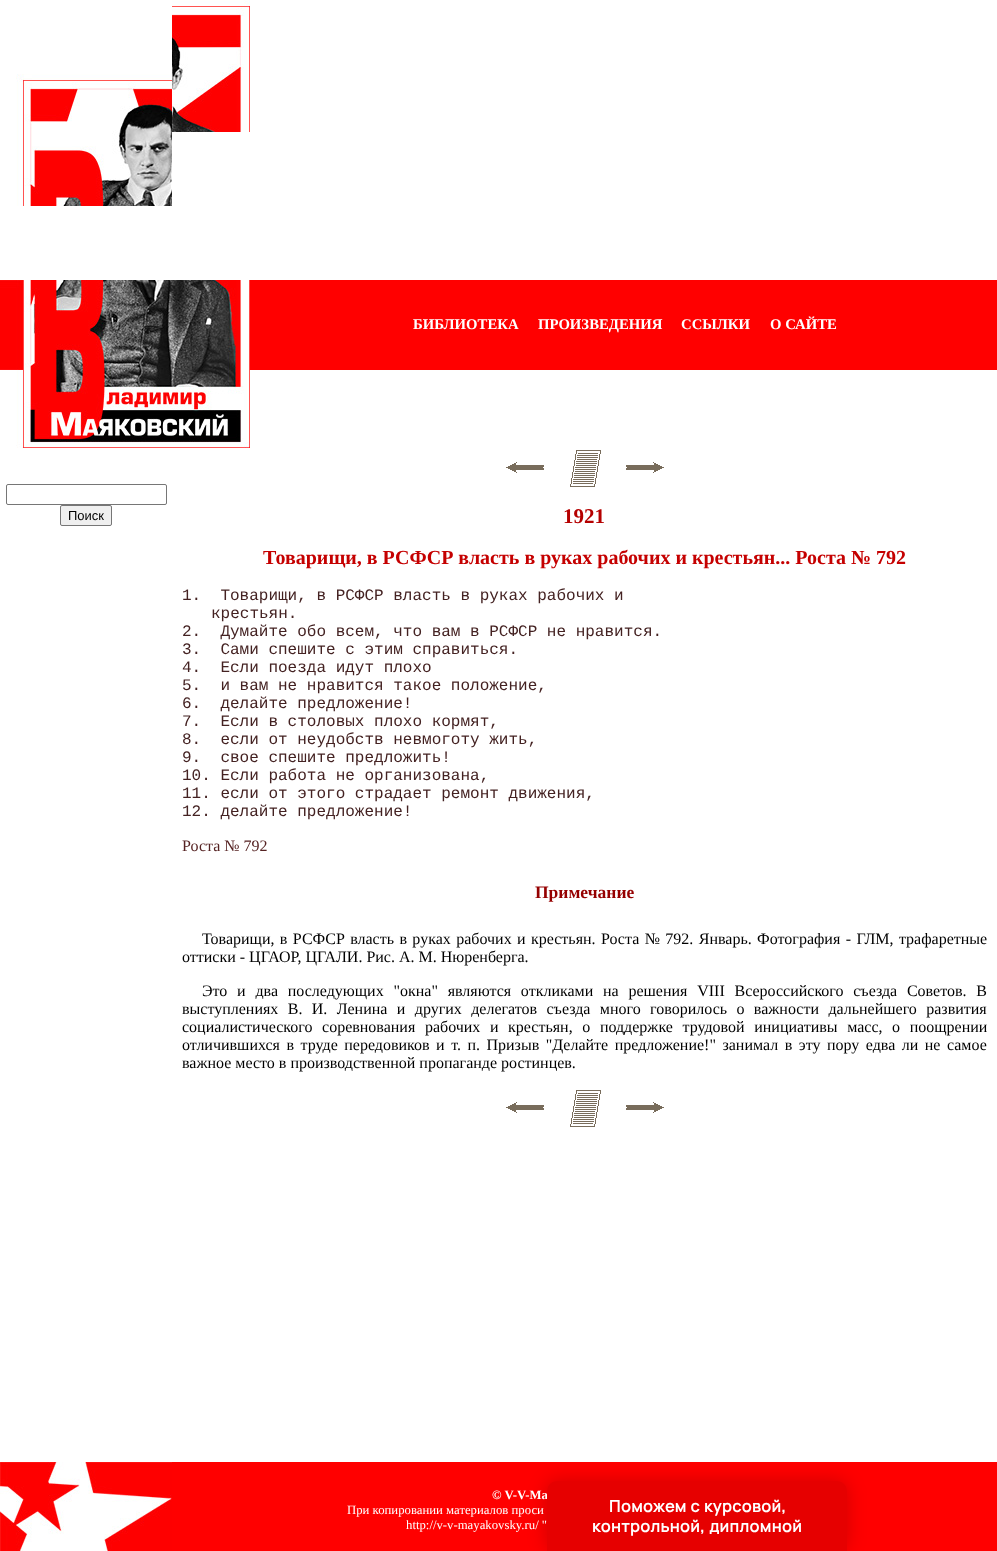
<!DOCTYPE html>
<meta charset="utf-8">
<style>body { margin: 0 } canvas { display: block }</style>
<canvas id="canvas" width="997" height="1551"></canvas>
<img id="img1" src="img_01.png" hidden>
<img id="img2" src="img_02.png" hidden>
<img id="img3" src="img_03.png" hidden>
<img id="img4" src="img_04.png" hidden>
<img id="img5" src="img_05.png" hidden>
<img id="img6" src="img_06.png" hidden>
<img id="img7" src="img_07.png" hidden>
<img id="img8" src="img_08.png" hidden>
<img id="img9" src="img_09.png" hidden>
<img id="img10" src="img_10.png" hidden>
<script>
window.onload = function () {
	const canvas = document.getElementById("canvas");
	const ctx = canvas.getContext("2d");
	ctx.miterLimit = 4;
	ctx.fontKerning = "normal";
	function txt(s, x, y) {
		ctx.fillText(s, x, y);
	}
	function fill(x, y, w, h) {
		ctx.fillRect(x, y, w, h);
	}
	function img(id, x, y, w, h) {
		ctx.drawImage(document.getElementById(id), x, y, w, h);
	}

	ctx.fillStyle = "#FFFFFF";
	fill(0, 0, 997, 1551);
	img("img1", 16, 74, 156, 132);
	img("img2", 172, 0, 78, 132);
	img("img3", 0, 280, 172, 90);
	ctx.fillStyle = "#FF0000";
	fill(250, 280, 747, 90);
	img("img4", 172, 280, 78, 90);
	img("img5", 16, 370, 156, 78);
	img("img6", 172, 370, 78, 78);
	ctx.beginPath();
	ctx.roundRect(6.5, 484.5, 160, 20, 1.5);
	ctx.strokeStyle = "#767676";
	ctx.stroke();
	ctx.fillStyle = "#EFEFEF";
	ctx.beginPath();
	ctx.roundRect(60.5, 505.5, 51, 20, 1.5);
	ctx.fill();
	ctx.stroke();
	img("img7", 506, 462, 38, 11);
	img("img8", 570, 450, 31, 37);
	img("img9", 626, 462, 38, 11);
	img("img7", 506, 1102, 38, 11);
	img("img8", 570, 1090, 31, 37);
	img("img9", 626, 1102, 38, 11);
	img("img10", 0, 1462, 172, 89);
	ctx.fillStyle = "#FF0000";
	fill(172, 1462, 825, 89);
	ctx.fillStyle = "rgba(0, 0, 0, 0.18)";
	ctx.filter = "blur(9.5px)";
	ctx.beginPath();
	ctx.roundRect(547, 1481, 300, 70, 10);
	ctx.fill();
	ctx.filter = "none";
	ctx.font = "bold 14.75px Liberation Serif";
	ctx.fillStyle = "#FFFFFF";
	txt("БИБЛИОТЕКА", 413, 329);
	txt("ПРОИЗВЕДЕНИЯ", 538, 329);
	txt("ССЫЛКИ", 681, 329);
	txt("О САЙТЕ", 770, 329);
	ctx.font = "13px Liberation Sans";
	ctx.fillStyle = "#000000";
	txt("Поиск", 68, 520);
	ctx.font = "bold 21px Liberation Serif";
	ctx.fillStyle = "#B50000";
	txt("1921", 563, 523);
	ctx.font = "bold 20px Liberation Serif";
	ctx.fillStyle = "#C50000";
	txt("Товарищи, в РСФСР власть в руках рабочих и крестьян... Роста № 792", 263, 564);
	ctx.font = "16px Liberation Mono";
	ctx.fillStyle = "#442222";
	txt("1.  Товарищи, в РСФСР власть в руках рабочих и", 182, 600);
	txt("крестьян.", 211, 618);
	txt("2.  Думайте обо всем, что вам в РСФСР не нравится.", 182, 636);
	txt("3.  Сами спешите с этим справиться.", 182, 654);
	txt("4.  Если поезда идут плохо", 182, 672);
	txt("5.  и вам не нравится такое положение,", 182, 690);
	txt("6.  делайте предложение!", 182, 708);
	txt("7.  Если в столовых плохо кормят,", 182, 726);
	txt("8.  если от неудобств невмоготу жить,", 182, 744);
	txt("9.  свое спешите предложить!", 182, 762);
	txt("10. Если работа не организована,", 182, 780);
	txt("11. если от этого страдает ремонт движения,", 182, 798);
	txt("12. делайте предложение!", 182, 816);
	ctx.font = "16px Liberation Serif";
	ctx.fillStyle = "#552222";
	txt("Роста № 792", 182, 851);
	ctx.font = "bold 17.5px Liberation Serif";
	ctx.fillStyle = "#950000";
	txt("Примечание", 535, 898);
	ctx.wordSpacing = "1.4px";
	ctx.font = "16px Liberation Serif";
	ctx.fillStyle = "#000000";
	txt("Товарищи, в РСФСР власть в руках рабочих и крестьян. Роста № 792. Январь. Фотография - ГЛМ, трафаретные", 202, 944);
	ctx.wordSpacing = "0px";
	txt("оттиски - ЦГАОР, ЦГАЛИ. Рис. А. М. Нюренберга.", 182, 962);
	ctx.wordSpacing = "5.75px";
	txt("Это и два последующих \"окна\" являются откликами на решения VIII Всероссийского съезда Советов. В", 202, 996);
	ctx.wordSpacing = "5.4px";
	txt("выступлениях В. И. Ленина и других делегатов съезда много говорилось о важности дальнейшего развития", 182, 1014);
	ctx.wordSpacing = "5.6px";
	txt("социалистического соревнования рабочих и крестьян, о поддержке трудовой инициативы масс, о поощрении", 182, 1032);
	ctx.wordSpacing = "2.5px";
	txt("отличившихся в труде передовиков и т. п. Призыв \"Делайте предложение!\" занимал в эту пору едва ли не самое", 182, 1050);
	ctx.wordSpacing = "0px";
	txt("важное место в производственной пропаганде ростинцев.", 182, 1068);
	ctx.font = "bold 12.75px Liberation Serif";
	ctx.fillStyle = "#FFFFFF";
	txt("© V-V-Ma", 492, 1499);
	ctx.font = "12.75px Liberation Serif";
	txt("При копировании материалов проси", 347, 1514);
	txt("http://v-v-mayakovsky.ru/ \"", 406, 1529);
	ctx.fillStyle = "#E60000";
	ctx.beginPath();
	ctx.roundRect(547, 1481, 300, 70, [10, 10, 0, 0]);
	ctx.fill();
	ctx.letterSpacing = "0.65px";
	ctx.font = "bold 16px Manrope";
	ctx.fillStyle = "#FFFFFF";
	txt("Поможем с курсовой,", 609, 1512);
	txt("контрольной, дипломной", 592, 1532);
};
</script>
